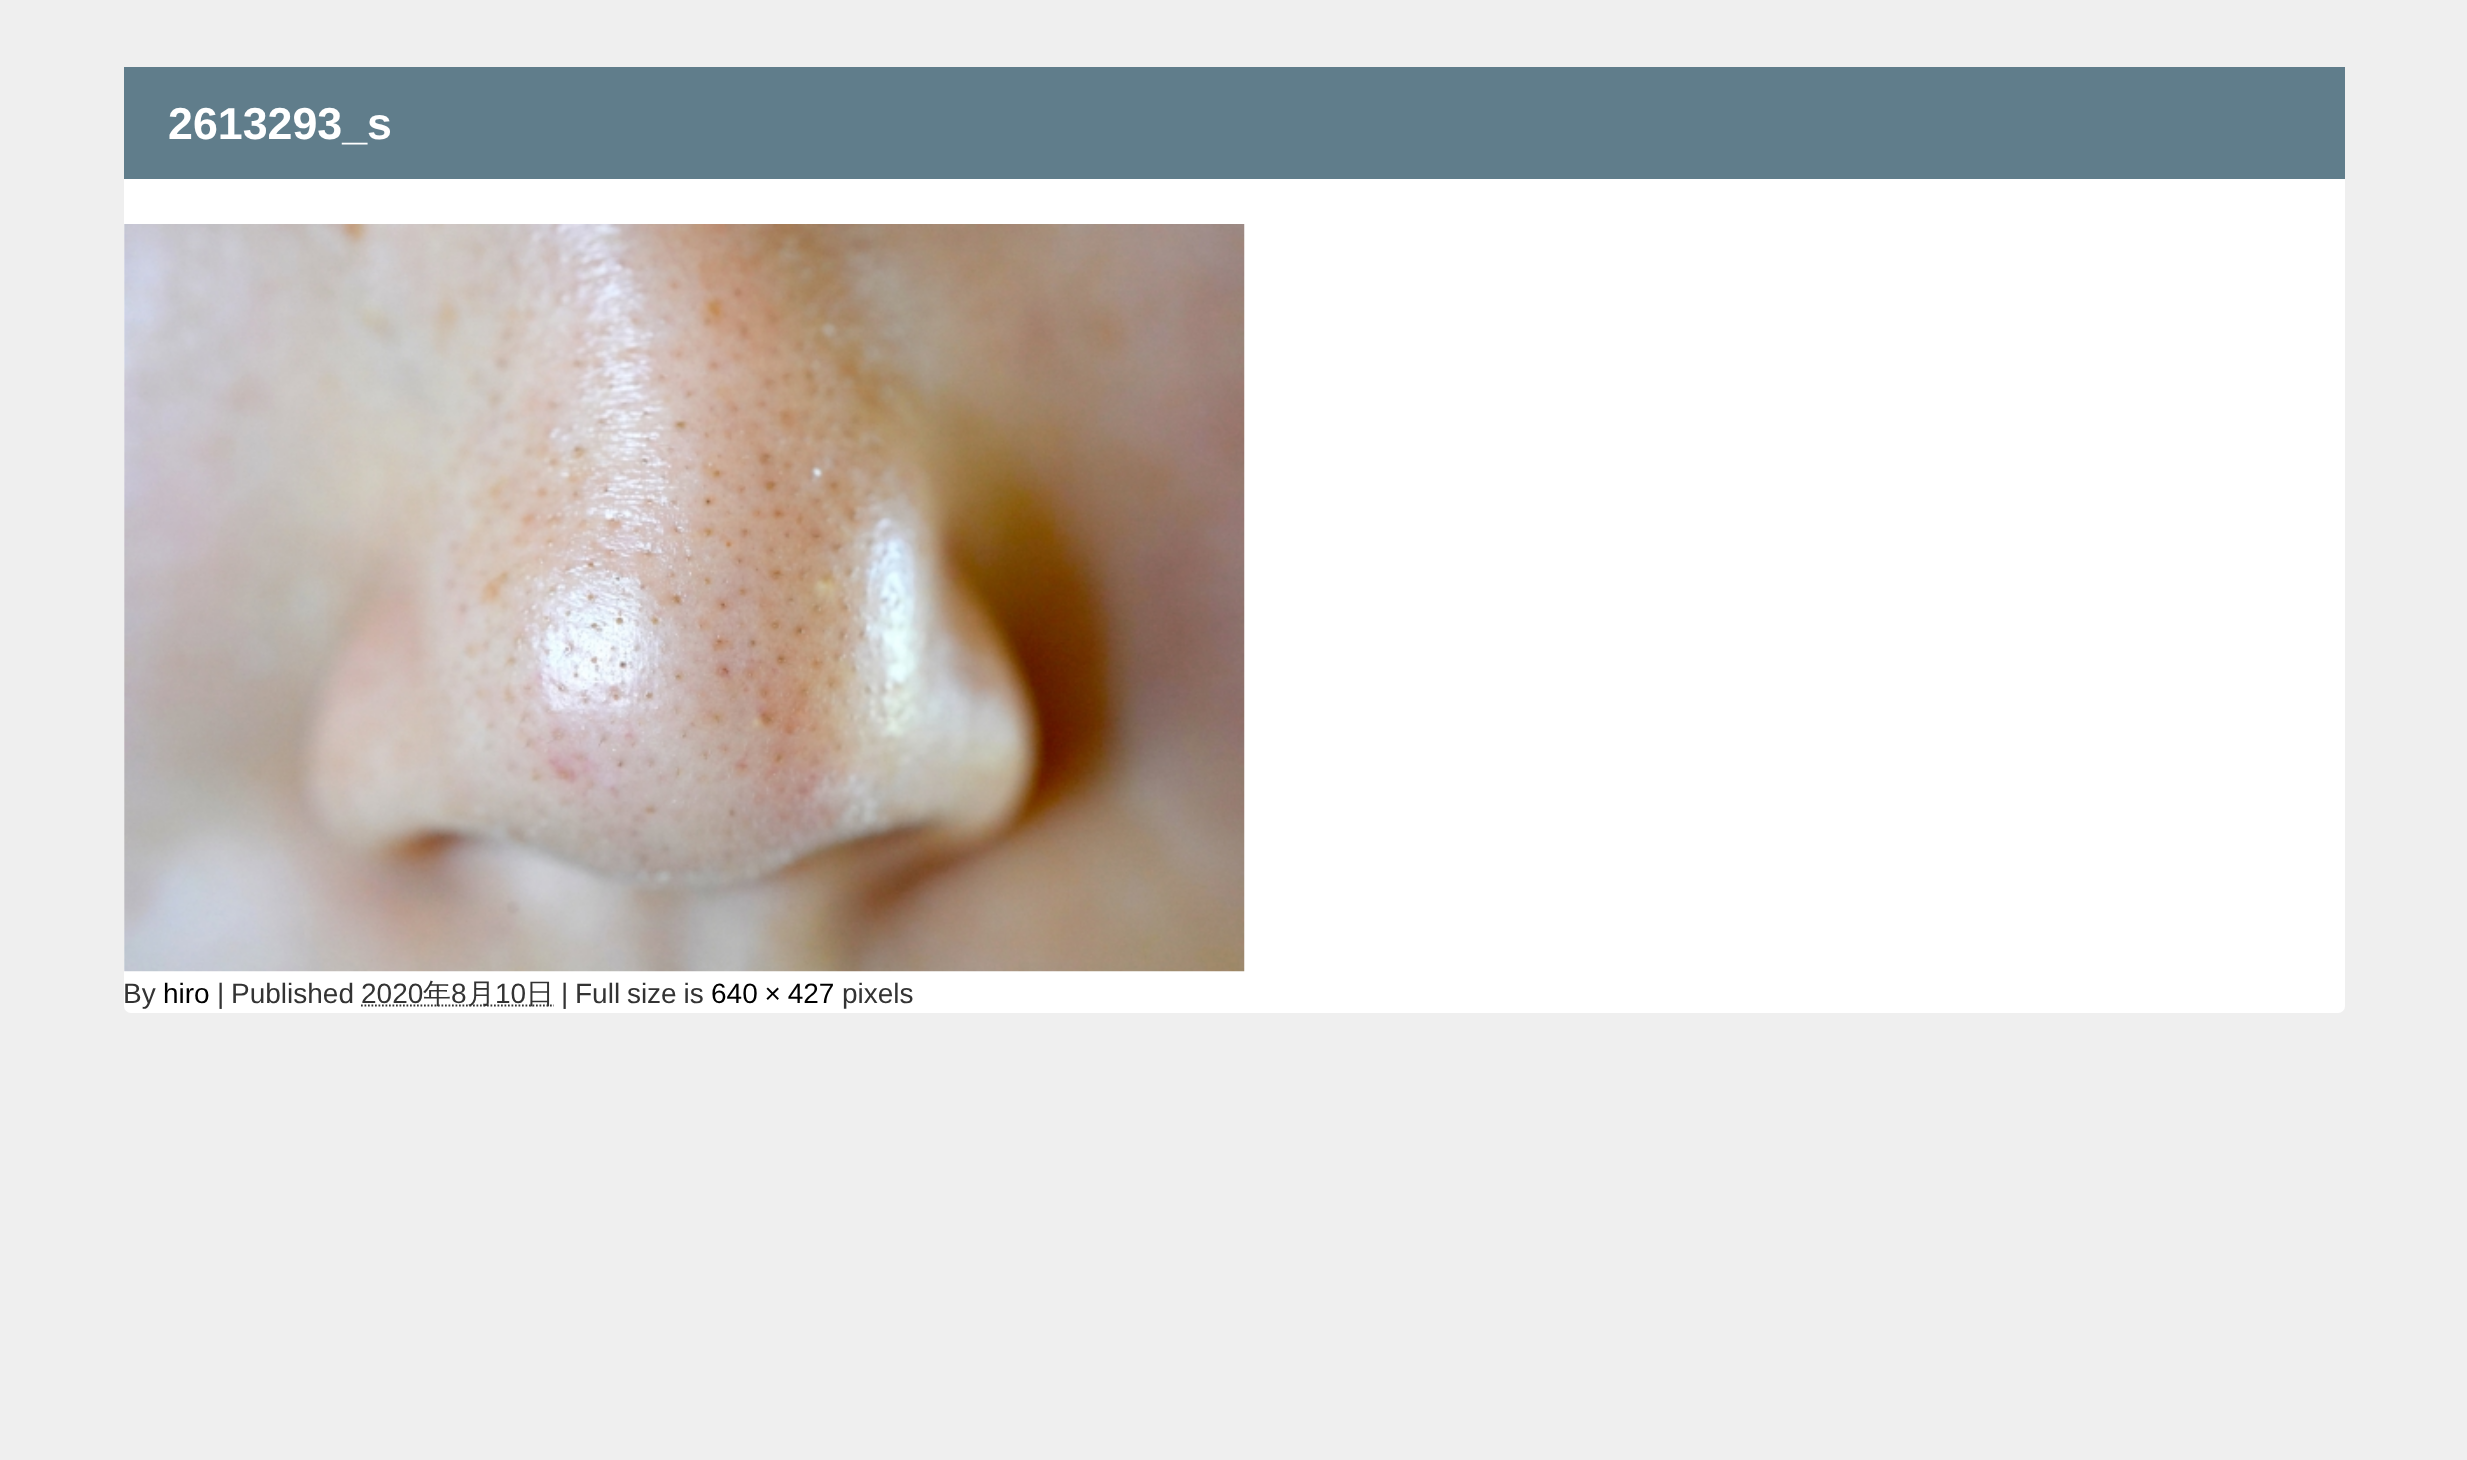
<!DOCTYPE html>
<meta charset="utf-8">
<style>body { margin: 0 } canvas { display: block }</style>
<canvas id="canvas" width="2467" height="1460"></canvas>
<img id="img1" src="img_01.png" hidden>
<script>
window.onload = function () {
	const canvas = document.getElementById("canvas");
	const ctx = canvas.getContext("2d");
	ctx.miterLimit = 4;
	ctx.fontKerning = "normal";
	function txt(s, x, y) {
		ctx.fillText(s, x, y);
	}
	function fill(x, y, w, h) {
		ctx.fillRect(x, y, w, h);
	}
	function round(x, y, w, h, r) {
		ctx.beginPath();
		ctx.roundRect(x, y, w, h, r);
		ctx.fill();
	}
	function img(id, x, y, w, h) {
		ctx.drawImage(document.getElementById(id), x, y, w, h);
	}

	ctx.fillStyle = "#EFEFEF";
	fill(0, 0, 2467, 1460);
	ctx.fillStyle = "#FFFFFF";
	round(124, 67, 2221, 946, 7);
	ctx.fillStyle = "#607D8B";
	fill(124, 67, 2221, 112);
	img("img1", 124, 224, 1121, 748);
	ctx.beginPath();
	ctx.moveTo(361, 1005.5);
	ctx.lineTo(554, 1005.5);
	ctx.strokeStyle = "#333333";
	ctx.lineWidth = 1.8;
	ctx.setLineDash([1.75, 1.75]);
	ctx.stroke();
	ctx.font = "bold 44.75px Liberation Sans";
	ctx.fillStyle = "#FFFFFF";
	txt("2613293_s", 168, 139);
	ctx.font = "28px Liberation Sans";
	ctx.fillStyle = "#333333";
	txt("By", 123, 1003);
	ctx.fillStyle = "#000000";
	txt("hiro", 163, 1003);
	ctx.fillStyle = "#333333";
	txt("|", 217, 1003);
	txt("Published", 231, 1003);
	txt("2020", 361, 1003);
	ctx.font = "500 28px WenQuanYi Zen Hei";
	txt("年", 423, 1003);
	ctx.font = "28px Liberation Sans";
	txt("8", 451, 1003);
	ctx.font = "500 28px WenQuanYi Zen Hei";
	txt("月", 467, 1003);
	ctx.font = "28px Liberation Sans";
	txt("10", 495, 1003);
	ctx.font = "500 28px WenQuanYi Zen Hei";
	txt("日", 526, 1003);
	ctx.font = "28px Liberation Sans";
	txt("|", 561, 1003);
	ctx.wordSpacing = "-1px";
	txt("Full size is", 575, 1003);
	ctx.fillStyle = "#000000";
	txt("640 × 427", 711, 1003);
	ctx.wordSpacing = "0px";
	ctx.fillStyle = "#333333";
	txt("pixels", 842, 1003);
};
</script>
